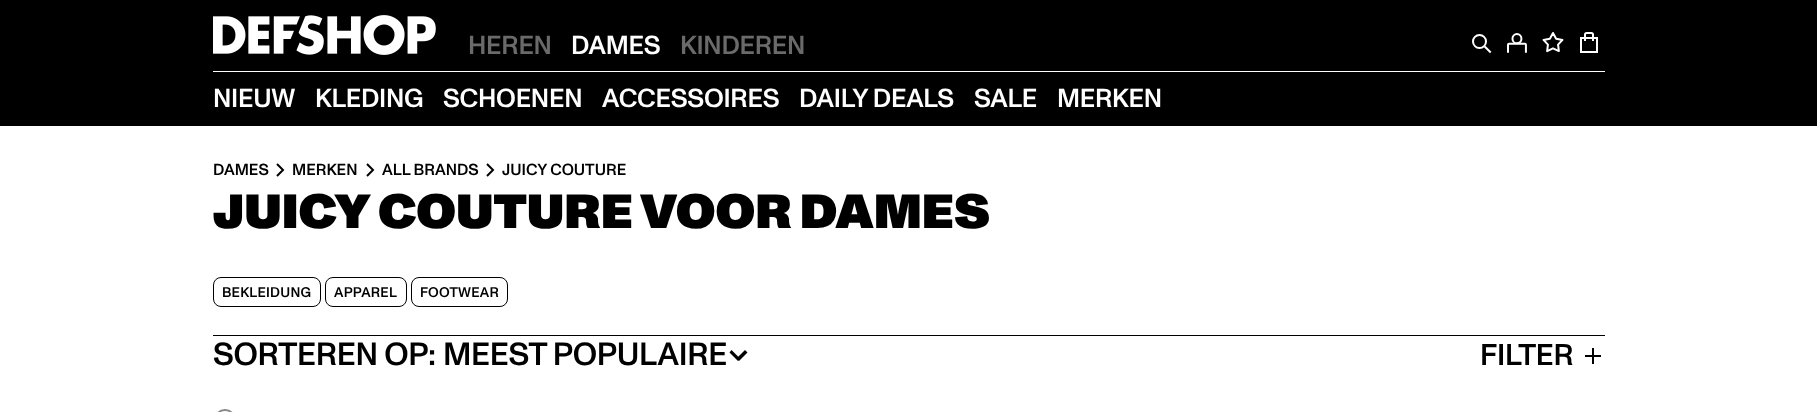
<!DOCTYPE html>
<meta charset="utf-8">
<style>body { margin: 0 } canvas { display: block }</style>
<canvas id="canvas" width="1817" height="412"></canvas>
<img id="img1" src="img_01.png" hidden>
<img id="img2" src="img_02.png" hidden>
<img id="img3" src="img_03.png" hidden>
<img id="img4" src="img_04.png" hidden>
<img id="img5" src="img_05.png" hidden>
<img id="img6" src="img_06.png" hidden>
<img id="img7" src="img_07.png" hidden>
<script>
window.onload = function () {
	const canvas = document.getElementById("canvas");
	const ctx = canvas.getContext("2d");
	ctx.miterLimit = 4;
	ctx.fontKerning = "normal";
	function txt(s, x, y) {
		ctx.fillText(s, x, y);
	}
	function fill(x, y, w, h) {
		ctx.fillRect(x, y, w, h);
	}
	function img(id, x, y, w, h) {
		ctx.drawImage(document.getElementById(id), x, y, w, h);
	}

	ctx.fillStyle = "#FFFFFF";
	fill(0, 0, 1817, 412);
	ctx.fillStyle = "#000000";
	fill(0, 0, 1817, 126);
	ctx.fillStyle = "#FFFFFF";
	fill(213, 71, 1392, 1);
	img("img1", 213, 15, 223, 40);
	img("img2", 1472, 34, 20, 20);
	img("img3", 1507, 33, 20, 20);
	img("img4", 1542, 32, 22, 21);
	img("img5", 1580, 32, 18, 21);
	img("img6", 276, 163, 9, 14);
	img("img6", 366, 163, 9, 14);
	img("img6", 486, 163, 9, 14);
	ctx.beginPath();
	ctx.roundRect(213.5, 277.5, 107, 29, 7.5);
	ctx.strokeStyle = "#000000";
	ctx.stroke();
	ctx.beginPath();
	ctx.roundRect(325.5, 277.5, 81, 29, 7.5);
	ctx.stroke();
	ctx.beginPath();
	ctx.roundRect(411.5, 277.5, 96, 29, 7.5);
	ctx.stroke();
	ctx.fillStyle = "#000000";
	fill(213, 335, 1392, 1);
	ctx.beginPath();
	ctx.moveTo(731.5, 350);
	ctx.lineTo(740, 358.5);
	ctx.lineTo(738, 361);
	ctx.lineTo(729.5, 352.5);
	ctx.closePath();
	ctx.fill();
	ctx.beginPath();
	ctx.moveTo(736.5, 358.5);
	ctx.lineTo(745, 350);
	ctx.lineTo(747.5, 352.5);
	ctx.lineTo(739, 361);
	ctx.closePath();
	ctx.fill();
	img("img7", 1585, 348, 16, 16);
	ctx.beginPath();
	ctx.arc(225, 420, 10, 0, Math.PI * 2);
	ctx.strokeStyle = "#878787";
	ctx.lineWidth = 2;
	ctx.stroke();
	ctx.letterSpacing = "-0.25px";
	ctx.font = "500 26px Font";
	ctx.fillStyle = "#6A6A6A";
	txt("HEREN", 468, 54);
	ctx.fillStyle = "#FFFFFF";
	txt("DAMES", 571, 54);
	ctx.fillStyle = "#6A6A6A";
	txt("KINDEREN", 680, 54);
	ctx.fillStyle = "#FFFFFF";
	txt("NIEUW", 213, 107);
	txt("KLEDING", 315, 107);
	txt("SCHOENEN", 443, 107);
	txt("ACCESSOIRES", 602, 107);
	txt("DAILY DEALS", 799, 107);
	txt("SALE", 974, 107);
	txt("MERKEN", 1057, 107);
	ctx.letterSpacing = "0px";
	ctx.font = "500 16px Font";
	ctx.fillStyle = "#000000";
	txt("DAMES", 213, 175);
	txt("MERKEN", 292, 175);
	txt("ALL BRANDS", 382, 175);
	txt("JUICY COUTURE", 502, 175);
	ctx.font = "900 48px Font";
	txt("JUICY COUTURE VOOR DAMES", 213, 228);
	ctx.letterSpacing = "0.25px";
	ctx.font = "500 14px Font";
	txt("BEKLEIDUNG", 222, 297);
	txt("APPAREL", 334, 297);
	txt("FOOTWEAR", 420, 297);
	ctx.letterSpacing = "-0.3px";
	ctx.font = "500 32px Font";
	txt("SORTEREN OP:", 213, 365);
	txt("MEEST POPULAIRE", 443, 365);
	ctx.letterSpacing = "-0.25px";
	ctx.font = "500 30px Font";
	txt("FILTER", 1480, 365);
};
</script>
